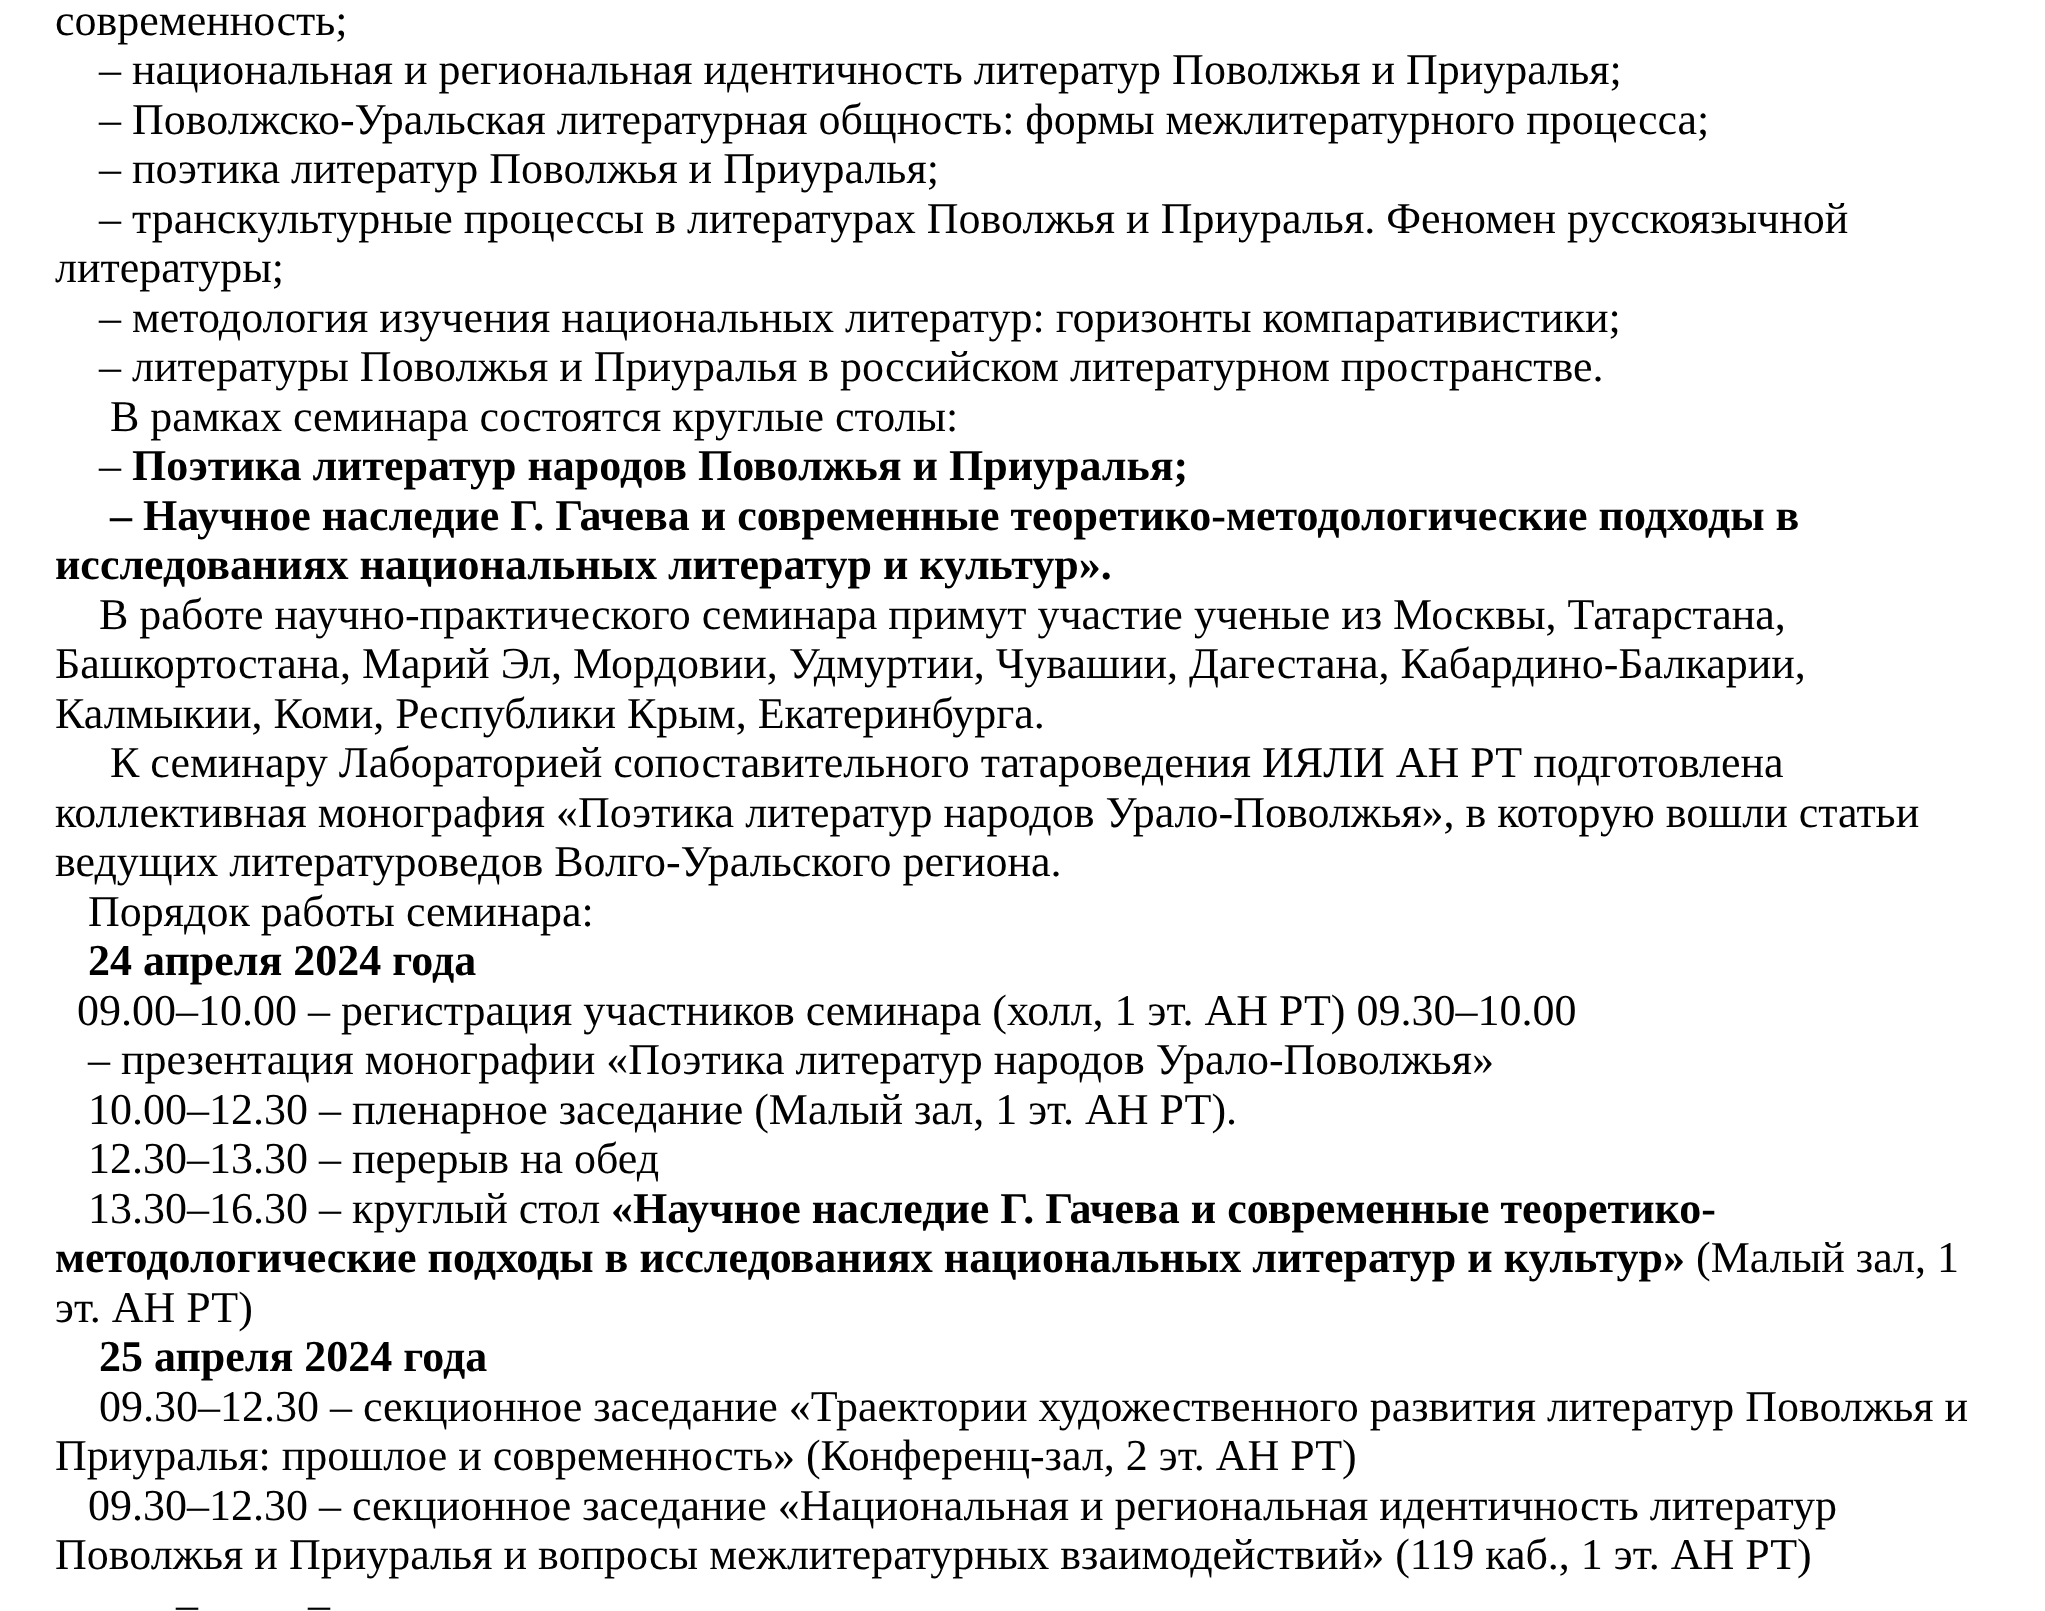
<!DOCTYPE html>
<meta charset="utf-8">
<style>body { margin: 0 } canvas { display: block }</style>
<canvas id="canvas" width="2045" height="1611"></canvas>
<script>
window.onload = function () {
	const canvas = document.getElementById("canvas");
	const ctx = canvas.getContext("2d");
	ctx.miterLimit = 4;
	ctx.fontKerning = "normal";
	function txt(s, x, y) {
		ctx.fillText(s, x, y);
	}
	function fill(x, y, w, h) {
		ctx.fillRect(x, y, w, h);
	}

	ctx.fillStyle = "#FFFFFF";
	fill(0, 0, 2045, 1611);
	ctx.font = "44px Liberation Serif";
	ctx.fillStyle = "#000000";
	txt("современность;", 55, 35);
	txt("– национальная и региональная идентичность литератур Поволжья и Приуралья;", 99, 84);
	txt("– Поволжско-Уральская литературная общность: формы межлитературного процесса;", 99, 134);
	txt("– поэтика литератур Поволжья и Приуралья;", 99, 183);
	txt("– транскультурные процессы в литературах Поволжья и Приуралья. Феномен русскоязычной", 99, 233);
	txt("литературы;", 55, 282);
	txt("– методология изучения национальных литератур: горизонты компаративистики;", 99, 332);
	txt("– литературы Поволжья и Приуралья в российском литературном пространстве.", 99, 381);
	txt("В рамках семинара состоятся круглые столы:", 110, 431);
	txt("–", 99, 480);
	ctx.font = "bold 44px Liberation Serif";
	txt("Поэтика литератур народов Поволжья и Приуралья;", 132, 480);
	txt("– Научное наследие Г. Гачева и современные теоретико-методологические подходы в", 110, 530);
	txt("исследованиях национальных литератур и культур».", 55, 579);
	ctx.font = "44px Liberation Serif";
	txt("В работе научно-практического семинара примут участие ученые из Москвы, Татарстана,", 99, 629);
	txt("Башкортостана, Марий Эл, Мордовии, Удмуртии, Чувашии, Дагестана, Кабардино-Балкарии,", 55, 678);
	txt("Калмыкии, Коми, Республики Крым, Екатеринбурга.", 55, 728);
	txt("К семинару Лабораторией сопоставительного татароведения ИЯЛИ АН РТ подготовлена", 110, 777);
	txt("коллективная монография «Поэтика литератур народов Урало-Поволжья», в которую вошли статьи", 55, 827);
	txt("ведущих литературоведов Волго-Уральского региона.", 55, 876);
	txt("Порядок работы семинара:", 88, 926);
	ctx.font = "bold 44px Liberation Serif";
	txt("24 апреля 2024 года", 88, 975);
	ctx.font = "44px Liberation Serif";
	txt("09.00–10.00 – регистрация участников семинара (холл, 1 эт. АН РТ) 09.30–10.00", 77, 1025);
	txt("– презентация монографии «Поэтика литератур народов Урало-Поволжья»", 88, 1074);
	txt("10.00–12.30 – пленарное заседание (Малый зал, 1 эт. АН РТ).", 88, 1124);
	txt("12.30–13.30 – перерыв на обед", 88, 1173);
	txt("13.30–16.30 – круглый стол", 88, 1223);
	ctx.font = "bold 44px Liberation Serif";
	txt("«Научное наследие Г. Гачева и современные теоретико-", 611, 1223);
	txt("методологические подходы в исследованиях национальных литератур и культур»", 55, 1272);
	ctx.font = "44px Liberation Serif";
	txt("(Малый зал, 1", 1696, 1272);
	txt("эт. АН РТ)", 55, 1322);
	ctx.font = "bold 44px Liberation Serif";
	txt("25 апреля 2024 года", 99, 1371);
	ctx.font = "44px Liberation Serif";
	txt("09.30–12.30 – секционное заседание «Траектории художественного развития литератур Поволжья и", 99, 1421);
	txt("Приуралья: прошлое и современность» (Конференц-зал, 2 эт. АН РТ)", 55, 1470);
	txt("09.30–12.30 – секционное заседание «Национальная и региональная идентичность литератур", 88, 1520);
	txt("Поволжья и Приуралья и вопросы межлитературных взаимодействий» (119 каб., 1 эт. АН РТ)", 55, 1569);
	txt("–", 176, 1619);
	txt("–", 308, 1619);
};
</script>
